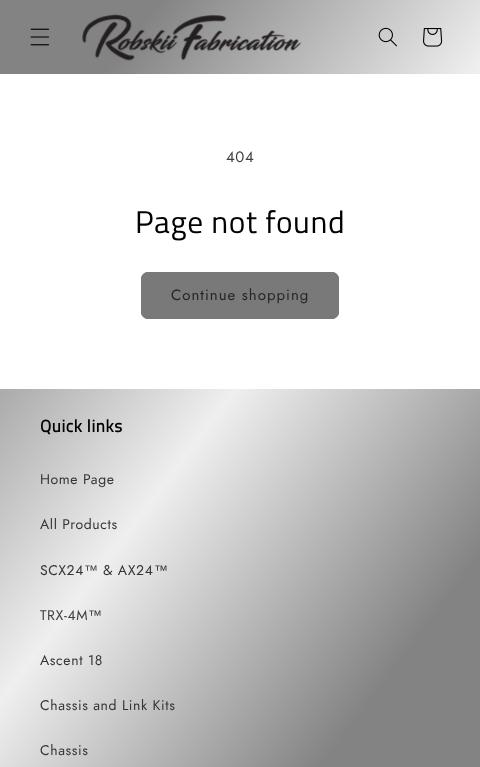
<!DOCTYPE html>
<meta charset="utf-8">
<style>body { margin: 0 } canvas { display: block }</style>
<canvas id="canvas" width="480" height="767"></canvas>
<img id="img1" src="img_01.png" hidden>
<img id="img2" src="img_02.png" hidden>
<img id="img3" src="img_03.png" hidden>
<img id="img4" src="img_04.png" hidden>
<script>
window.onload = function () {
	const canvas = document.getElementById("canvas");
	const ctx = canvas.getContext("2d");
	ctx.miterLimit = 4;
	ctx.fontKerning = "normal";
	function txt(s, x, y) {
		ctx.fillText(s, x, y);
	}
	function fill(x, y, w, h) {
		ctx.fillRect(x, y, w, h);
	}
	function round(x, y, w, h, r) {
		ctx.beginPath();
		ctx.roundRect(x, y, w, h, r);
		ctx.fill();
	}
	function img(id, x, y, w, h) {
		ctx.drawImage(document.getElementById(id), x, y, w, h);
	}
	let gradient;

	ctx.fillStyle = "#FFFFFF";
	fill(0, 0, 480, 767);
	gradient = ctx.createLinearGradient(-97, 129, 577, 638);
	gradient.addColorStop(0.15, "#838383");
	gradient.addColorStop(0.5, "#EFEFEF");
	gradient.addColorStop(0.85, "#838383");
	ctx.fillStyle = gradient;
	fill(0, 0, 480, 74);
	img("img1", 30, 28, 20, 18);
	img("img2", 82, 14, 220, 47);
	img("img3", 378, 27, 19, 20);
	img("img4", 423, 28, 20, 19);
	ctx.fillStyle = "#797979";
	round(141, 272, 198, 47, 7);
	ctx.beginPath();
	ctx.roundRect(141.5, 272.5, 197, 46, 6.5);
	ctx.strokeStyle = "#797979";
	ctx.stroke();
	gradient = ctx.createLinearGradient(-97, 129, 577, 638);
	gradient.addColorStop(0.15, "#838383");
	gradient.addColorStop(0.5, "#EFEFEF");
	gradient.addColorStop(0.85, "#838383");
	ctx.fillStyle = gradient;
	fill(0, 389, 480, 378);
	ctx.letterSpacing = "0.6px";
	ctx.font = "15px Jost";
	ctx.fillStyle = "#404040";
	txt("404", 226, 162);
	ctx.font = "31.5px Titillium Web";
	ctx.fillStyle = "#000000";
	txt("Page not found", 135, 233);
	ctx.letterSpacing = "1px";
	ctx.font = "15px Jost";
	ctx.fillStyle = "#262626";
	txt("Continue shopping", 171, 300);
	ctx.letterSpacing = "0.6px";
	ctx.font = "bold 17px Titillium Web";
	ctx.fillStyle = "#000000";
	txt("Quick links", 40, 432);
	ctx.font = "14px Jost";
	ctx.fillStyle = "#353535";
	txt("Home Page", 40, 484);
	txt("All Products", 40, 529);
	txt("SCX24", 40, 575);
	ctx.font = "14px Liberation Sans";
	ctx.fillStyle = "#404040";
	txt("™", 84, 575);
	ctx.font = "14px Jost";
	ctx.fillStyle = "#353535";
	txt("& AX24", 103, 575);
	ctx.font = "14px Liberation Sans";
	txt("™", 154, 575);
	ctx.font = "14px Jost";
	ctx.fillStyle = "#404040";
	txt("TRX-4M", 40, 620);
	ctx.font = "14px Liberation Sans";
	ctx.fillStyle = "#353535";
	txt("™", 88, 620);
	ctx.font = "14px Jost";
	txt("Ascent 18", 40, 665);
	txt("Chassis and Link Kits", 40, 710);
	txt("Chassis", 40, 755);
};
</script>
